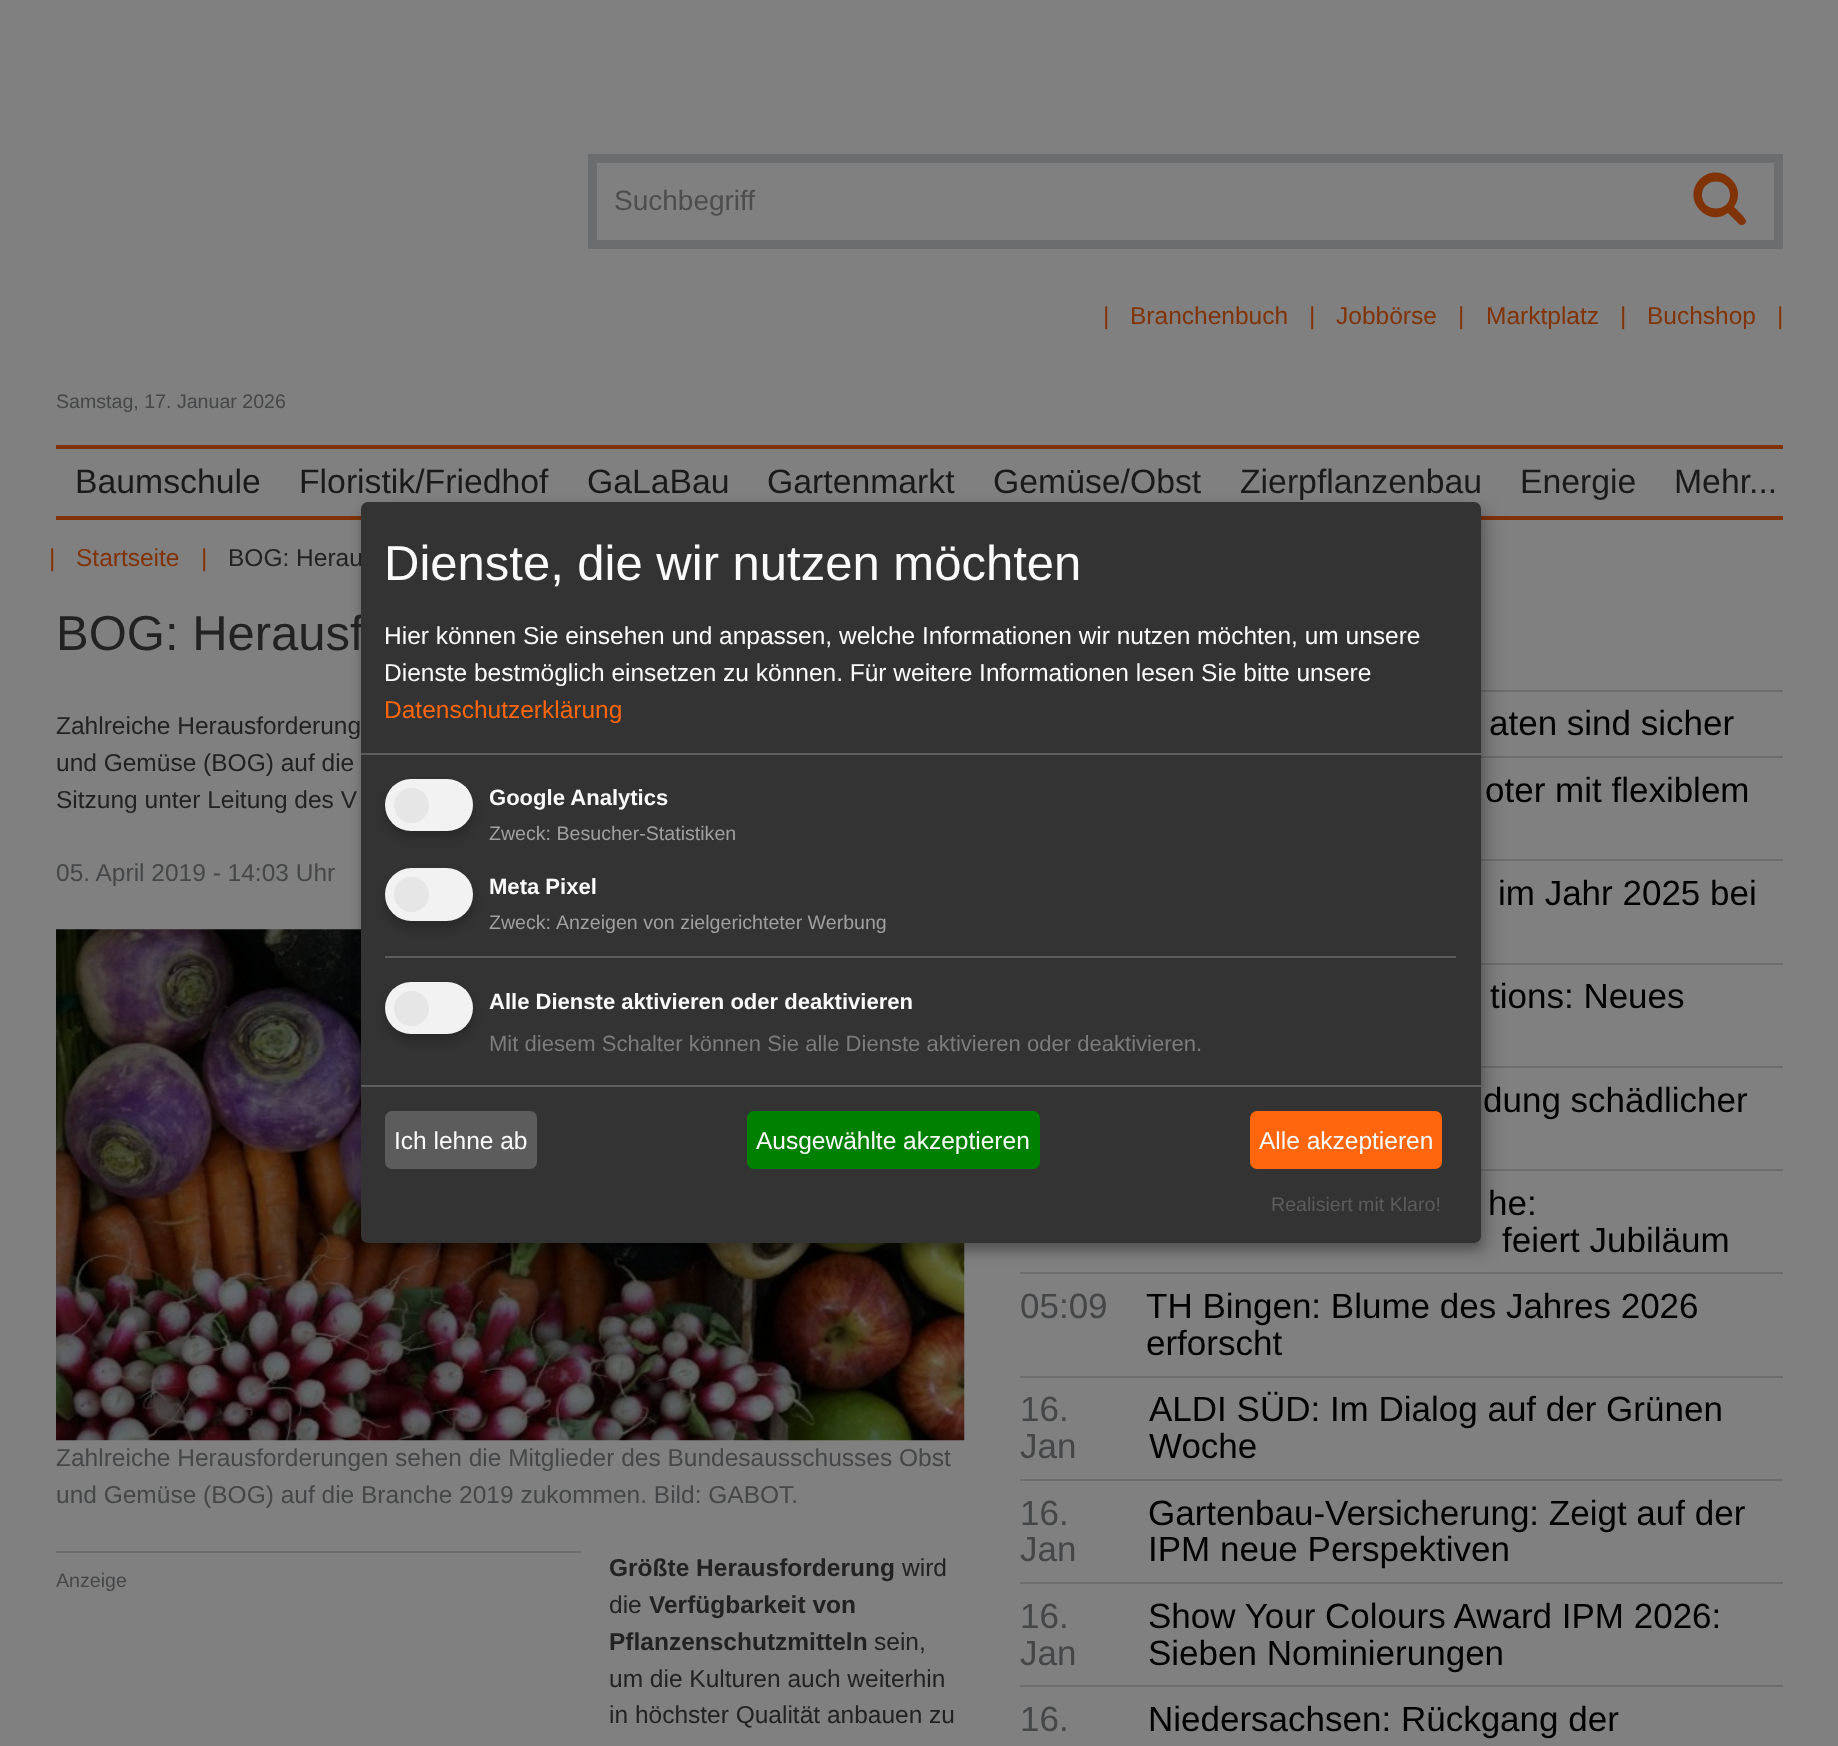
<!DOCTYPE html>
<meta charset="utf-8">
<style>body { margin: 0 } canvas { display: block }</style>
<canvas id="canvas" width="1838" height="1746"></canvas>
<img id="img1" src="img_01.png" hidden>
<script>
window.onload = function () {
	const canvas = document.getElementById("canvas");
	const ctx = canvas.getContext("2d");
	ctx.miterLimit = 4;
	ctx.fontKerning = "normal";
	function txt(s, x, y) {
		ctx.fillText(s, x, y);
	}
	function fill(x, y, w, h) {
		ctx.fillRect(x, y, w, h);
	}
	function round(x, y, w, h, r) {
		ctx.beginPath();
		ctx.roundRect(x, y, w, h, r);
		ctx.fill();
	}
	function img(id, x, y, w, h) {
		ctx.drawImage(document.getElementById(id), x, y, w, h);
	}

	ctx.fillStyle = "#808080";
	fill(0, 0, 1838, 1746);
	ctx.strokeStyle = "#6C6D6E";
	ctx.lineWidth = 9;
	ctx.strokeRect(592.5, 158.5, 1186, 86);
	ctx.fillStyle = "#803307";
	ctx.beginPath();
	ctx.moveTo(1730, 195);
	ctx.bezierCurveTo(1730, 213, 1702, 213, 1702, 195);
	ctx.bezierCurveTo(1702, 177, 1730, 177, 1730, 195);
	ctx.closePath();
	ctx.moveTo(1746, 221);
	ctx.bezierCurveTo(1746, 218, 1737, 210, 1734, 207);
	ctx.bezierCurveTo(1749, 186, 1720, 160, 1700, 179);
	ctx.bezierCurveTo(1681, 199, 1707, 228, 1728, 213);
	ctx.lineTo(1739, 224);
	ctx.bezierCurveTo(1740, 225, 1741, 225, 1742, 225);
	ctx.bezierCurveTo(1744, 225, 1746, 223, 1746, 221);
	ctx.closePath();
	ctx.fill();
	fill(56, 445, 1727, 4);
	fill(56, 516, 1727, 4);
	img("img1", 56, 929, 909, 512);
	ctx.fillStyle = "#6C6D6E";
	fill(56, 1551, 525, 2);
	fill(1481, 690, 302, 2);
	fill(1481, 756, 302, 2);
	fill(1481, 859, 302, 2);
	fill(1481, 963, 302, 2);
	fill(1481, 1066, 302, 2);
	fill(1481, 1169, 302, 2);
	fill(1020, 1272, 763, 2);
	fill(1020, 1376, 763, 2);
	fill(1020, 1479, 763, 2);
	fill(1020, 1582, 763, 2);
	fill(1020, 1685, 763, 2);
	ctx.fillStyle = "rgba(0, 0, 0, 0.19)";
	ctx.filter = "blur(9px)";
	ctx.beginPath();
	ctx.roundRect(369, 511, 1120, 740, 7);
	ctx.fill();
	ctx.filter = "none";
	ctx.fillStyle = "rgba(0, 0, 0, 0.2)";
	ctx.filter = "blur(5px)";
	ctx.beginPath();
	ctx.roundRect(361, 509, 1120, 741, 7);
	ctx.fill();
	ctx.filter = "none";
	ctx.font = "28px Liberation Sans";
	ctx.fillStyle = "#4D4D4D";
	txt("Suchbegriff", 614, 210);
	ctx.font = "24.5px Liberation Sans";
	ctx.fillStyle = "#803307";
	txt("|", 1103, 324);
	txt("Branchenbuch", 1130, 324);
	txt("|", 1309, 324);
	txt("Jobbörse", 1336, 324);
	txt("|", 1458, 324);
	txt("Marktplatz", 1486, 324);
	txt("|", 1620, 324);
	txt("Buchshop", 1647, 324);
	txt("|", 1777, 324);
	ctx.font = "19.6px Liberation Sans";
	ctx.fillStyle = "#454647";
	txt("Samstag, 17. Januar 2026", 56, 408);
	ctx.font = "33.75px Liberation Sans";
	ctx.fillStyle = "#1A1A1A";
	txt("Baumschule", 75, 493);
	txt("Floristik/Friedhof", 299, 493);
	txt("GaLaBau", 587, 493);
	txt("Gartenmarkt", 767, 493);
	txt("Gemüse/Obst", 993, 493);
	txt("Zierpflanzenbau", 1240, 493);
	txt("Energie", 1520, 493);
	txt("Mehr...", 1674, 493);
	ctx.font = "24.5px Liberation Sans";
	ctx.fillStyle = "#803307";
	txt("|", 49, 566);
	txt("Startseite", 76, 566);
	txt("|", 201, 566);
	ctx.fillStyle = "#222222";
	txt("BOG: Herau", 228, 566);
	ctx.font = "49px Liberation Sans";
	txt("BOG: Herausf", 56, 650);
	ctx.font = "24.5px Liberation Sans";
	txt("Zahlreiche Herausforderung", 56, 734);
	txt("und Gemüse (BOG) auf die", 56, 771);
	txt("Sitzung unter Leitung des V", 56, 808);
	ctx.fillStyle = "#454647";
	txt("05. April 2019 - 14:03 Uhr", 56, 881);
	txt("Zahlreiche Herausforderungen sehen die Mitglieder des Bundesausschusses Obst", 56, 1466);
	txt("und Gemüse (BOG) auf die Branche 2019 zukommen. Bild: GABOT.", 56, 1503);
	ctx.font = "19.6px Liberation Sans";
	txt("Anzeige", 56, 1587);
	ctx.font = "bold 24.5px Liberation Sans";
	ctx.fillStyle = "#222222";
	txt("Größte Herausforderung", 609, 1576);
	ctx.font = "24.5px Liberation Sans";
	txt("wird", 902, 1576);
	txt("die", 609, 1613);
	ctx.font = "bold 24.5px Liberation Sans";
	txt("Verfügbarkeit von", 649, 1613);
	txt("Pflanzenschutzmitteln", 609, 1650);
	ctx.font = "24.5px Liberation Sans";
	txt("sein,", 874, 1650);
	txt("um die Kulturen auch weiterhin", 609, 1687);
	txt("in höchster Qualität anbauen zu", 609, 1723);
	ctx.font = "35px Liberation Sans";
	ctx.fillStyle = "#000000";
	txt("aten sind sicher", 1489, 735);
	txt("oter mit flexiblem", 1485, 802);
	txt("im Jahr 2025 bei", 1498, 905);
	txt("tions: Neues", 1490, 1008);
	txt("dung schädlicher", 1483, 1112);
	txt("he:", 1488, 1215);
	txt("feiert Jubiläum", 1502, 1252);
	ctx.fillStyle = "#454647";
	txt("05:09", 1020, 1318);
	ctx.fillStyle = "#000000";
	txt("TH Bingen: Blume des Jahres 2026", 1146, 1318);
	txt("erforscht", 1146, 1355);
	ctx.fillStyle = "#454647";
	txt("16.", 1020, 1421);
	txt("Jan", 1020, 1458);
	ctx.fillStyle = "#000000";
	txt("ALDI SÜD: Im Dialog auf der Grünen", 1149, 1421);
	txt("Woche", 1149, 1458);
	ctx.fillStyle = "#454647";
	txt("16.", 1020, 1525);
	txt("Jan", 1020, 1561);
	ctx.fillStyle = "#000000";
	txt("Gartenbau-Versicherung: Zeigt auf der", 1148, 1525);
	txt("IPM neue Perspektiven", 1148, 1561);
	ctx.fillStyle = "#454647";
	txt("16.", 1020, 1628);
	txt("Jan", 1020, 1665);
	ctx.fillStyle = "#000000";
	txt("Show Your Colours Award IPM 2026:", 1148, 1628);
	txt("Sieben Nominierungen", 1148, 1665);
	ctx.fillStyle = "#454647";
	txt("16.", 1020, 1731);
	ctx.fillStyle = "#000000";
	txt("Niedersachsen: Rückgang der", 1148, 1731);
	ctx.fillStyle = "#333333";
	round(361, 502, 1120, 741, 7);
	ctx.fillStyle = "#5C5C5C";
	fill(361, 753, 1120, 2);
	ctx.font = "49px Liberation Sans";
	ctx.fillStyle = "#FAFAFA";
	txt("Dienste, die wir nutzen möchten", 384, 580);
	ctx.font = "24.5px Liberation Sans";
	txt("Hier können Sie einsehen und anpassen, welche Informationen wir nutzen möchten, um unsere", 384, 644);
	txt("Dienste bestmöglich einsetzen zu können. Für weitere Informationen lesen Sie bitte unsere", 384, 681);
	ctx.fillStyle = "#FF660D";
	txt("Datenschutzerklärung", 384, 718);
	ctx.fillStyle = "rgba(0, 0, 0, 0.2)";
	ctx.filter = "blur(5px)";
	ctx.beginPath();
	ctx.roundRect(385, 786, 88, 52, 26);
	ctx.fill();
	ctx.filter = "none";
	ctx.fillStyle = "#F2F2F2";
	round(385, 779, 88, 52, 26);
	ctx.fillStyle = "#E6E6E6";
	ctx.beginPath();
	ctx.arc(411.5, 805.5, 17.5, 0, Math.PI * 2);
	ctx.fill();
	ctx.font = "bold 22.05px Liberation Sans";
	ctx.fillStyle = "#FAFAFA";
	txt("Google Analytics", 489, 805);
	ctx.font = "19.6px Liberation Sans";
	ctx.fillStyle = "#A0A0A0";
	txt("Zweck: Besucher-Statistiken", 489, 840);
	ctx.fillStyle = "rgba(0, 0, 0, 0.2)";
	ctx.filter = "blur(5px)";
	ctx.beginPath();
	ctx.roundRect(385, 875, 88, 53, 26.5);
	ctx.fill();
	ctx.filter = "none";
	ctx.fillStyle = "#F2F2F2";
	round(385, 868, 88, 53, 26.5);
	ctx.fillStyle = "#E6E6E6";
	ctx.beginPath();
	ctx.arc(411.5, 894.5, 17.5, 0, Math.PI * 2);
	ctx.fill();
	ctx.font = "bold 22.05px Liberation Sans";
	ctx.fillStyle = "#FAFAFA";
	txt("Meta Pixel", 489, 894);
	ctx.font = "19.6px Liberation Sans";
	ctx.fillStyle = "#A0A0A0";
	txt("Zweck:", 489, 929);
	txt("Anzeigen von zielgerichteter Werbung", 556, 929);
	ctx.fillStyle = "#5C5C5C";
	fill(385, 956, 1071, 2);
	ctx.fillStyle = "rgba(0, 0, 0, 0.2)";
	ctx.filter = "blur(5px)";
	ctx.beginPath();
	ctx.roundRect(385, 989, 88, 52, 26);
	ctx.fill();
	ctx.filter = "none";
	ctx.fillStyle = "#F2F2F2";
	round(385, 982, 88, 52, 26);
	ctx.fillStyle = "#E6E6E6";
	ctx.beginPath();
	ctx.arc(411.5, 1008.5, 17.5, 0, Math.PI * 2);
	ctx.fill();
	ctx.font = "bold 22.05px Liberation Sans";
	ctx.fillStyle = "#FAFAFA";
	txt("Alle Dienste aktivieren oder deaktivieren", 489, 1009);
	ctx.font = "22.05px Liberation Sans";
	ctx.fillStyle = "#7C7C7C";
	txt("Mit diesem Schalter können Sie alle Dienste aktivieren oder deaktivieren.", 489, 1051);
	ctx.fillStyle = "#5C5C5C";
	fill(361, 1085, 1120, 2);
	round(385, 1111, 152, 58, 7);
	ctx.font = "24.5px Liberation Sans";
	ctx.fillStyle = "#FAFAFA";
	txt("Ich lehne ab", 394, 1149);
	ctx.fillStyle = "#008000";
	round(747, 1111, 293, 58, 7);
	ctx.fillStyle = "#FAFAFA";
	txt("Ausgewählte akzeptieren", 756, 1149);
	ctx.fillStyle = "#FF660D";
	round(1250, 1111, 192, 58, 7);
	ctx.fillStyle = "#FAFAFA";
	txt("Alle akzeptieren", 1259, 1149);
	ctx.font = "19.6px Liberation Sans";
	ctx.fillStyle = "#5C5C5C";
	txt("Realisiert mit Klaro!", 1271, 1211);
};
</script>
